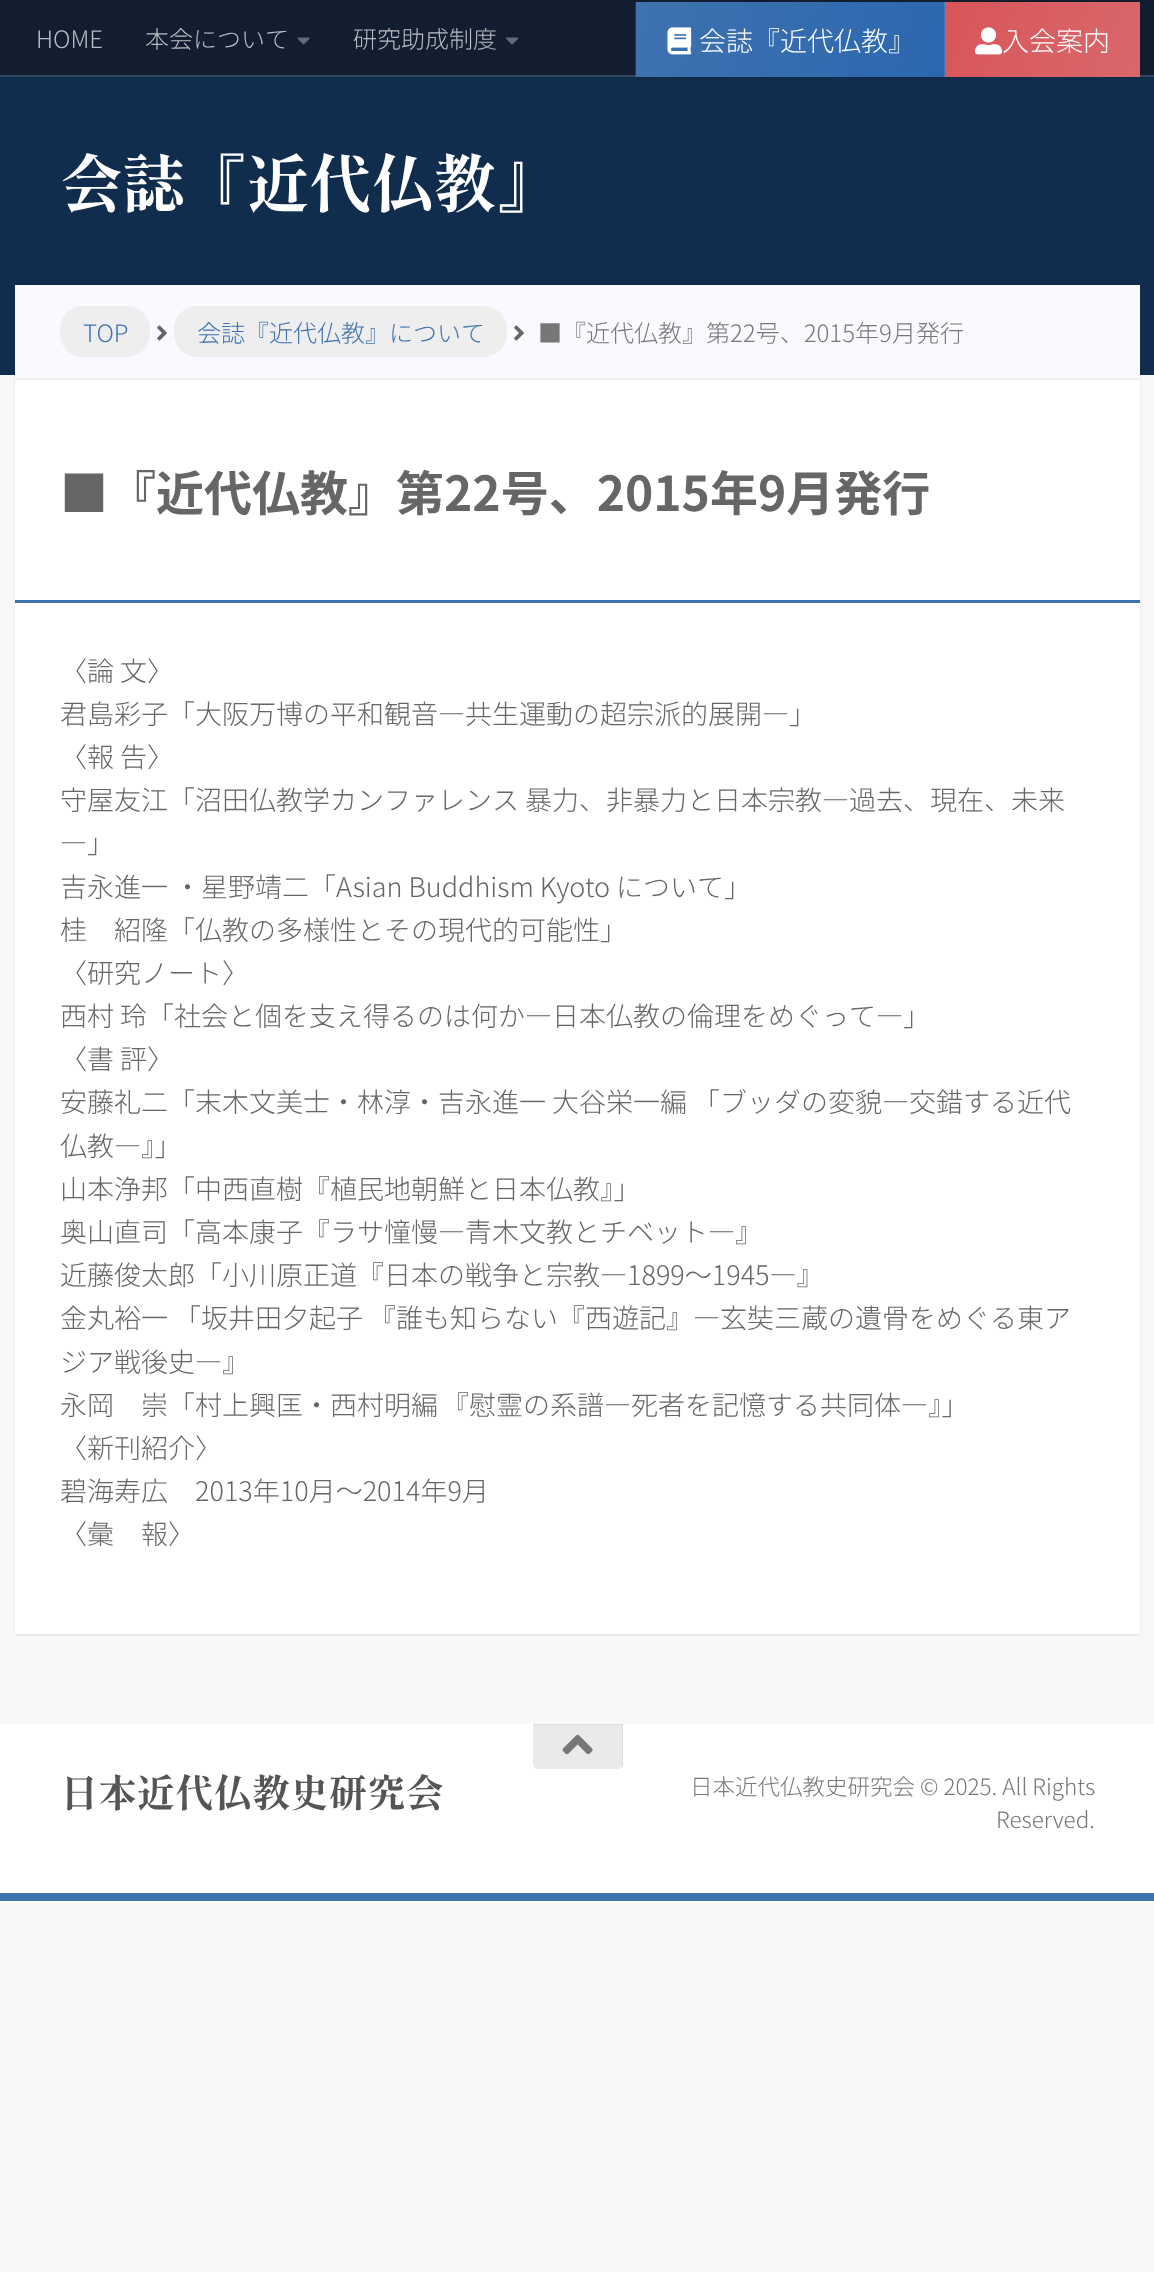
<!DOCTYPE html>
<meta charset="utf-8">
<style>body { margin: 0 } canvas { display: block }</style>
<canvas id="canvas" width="1154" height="2272"></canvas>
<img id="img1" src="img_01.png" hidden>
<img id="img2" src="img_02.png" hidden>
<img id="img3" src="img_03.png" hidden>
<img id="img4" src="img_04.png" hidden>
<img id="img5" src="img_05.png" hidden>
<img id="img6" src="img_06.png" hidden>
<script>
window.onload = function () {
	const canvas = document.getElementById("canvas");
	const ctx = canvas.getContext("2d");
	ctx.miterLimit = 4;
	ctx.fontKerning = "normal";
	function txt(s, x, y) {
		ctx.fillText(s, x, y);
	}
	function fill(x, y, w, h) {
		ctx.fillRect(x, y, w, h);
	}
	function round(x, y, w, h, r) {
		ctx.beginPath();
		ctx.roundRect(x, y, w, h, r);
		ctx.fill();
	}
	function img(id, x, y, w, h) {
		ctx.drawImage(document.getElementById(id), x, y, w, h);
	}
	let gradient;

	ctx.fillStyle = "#F9F7F7";
	fill(0, 0, 1154, 2272);
	ctx.fillStyle = "rgba(0, 0, 0, 0.1)";
	ctx.filter = "blur(1px)";
	ctx.beginPath();
	ctx.rect(15, 287, 1125, 1348);
	ctx.fill();
	ctx.filter = "none";
	ctx.fillStyle = "#112D4E";
	fill(0, 77, 1154, 298);
	ctx.fillStyle = "#354D69";
	fill(0, 75, 1154, 2);
	ctx.fillStyle = "rgba(0, 0, 0, 0.2)";
	ctx.filter = "blur(4px)";
	ctx.beginPath();
	ctx.rect(0, 0, 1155, 75);
	ctx.fill();
	ctx.filter = "none";
	ctx.fillStyle = "#121D30";
	fill(0, 0, 1154, 75);
	img("img1", 297, 37, 13, 8);
	img("img2", 506, 37, 13, 8);
	ctx.fillStyle = "rgba(255, 255, 255, 0.1)";
	ctx.beginPath();
	ctx.moveTo(635, 2);
	ctx.lineTo(635, 77);
	ctx.lineTo(944, 77);
	ctx.lineTo(944, 76);
	ctx.lineTo(636, 76);
	ctx.lineTo(636, 2);
	ctx.closePath();
	ctx.fill();
	gradient = ctx.createLinearGradient(638, -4.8, 943, 83);
	gradient.addColorStop(0, "#3F72AF");
	gradient.addColorStop(1, "#2B67AF");
	ctx.fillStyle = gradient;
	fill(636, 2, 309, 75);
	img("img3", 667, 27, 25, 28);
	ctx.fillStyle = "rgba(255, 255, 255, 0.1)";
	ctx.beginPath();
	ctx.moveTo(944, 2);
	ctx.lineTo(944, 77);
	ctx.lineTo(1139, 77);
	ctx.lineTo(1139, 76);
	ctx.lineTo(945, 76);
	ctx.lineTo(945, 2);
	ctx.closePath();
	ctx.fill();
	gradient = ctx.createLinearGradient(947, -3.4, 1138, 81);
	gradient.addColorStop(0, "#D85559");
	gradient.addColorStop(1, "#D9686B");
	ctx.fillStyle = gradient;
	fill(945, 2, 195, 75);
	img("img4", 975, 27, 27, 28);
	ctx.fillStyle = "#FFFFFF";
	fill(15, 380, 1125, 1254);
	ctx.fillStyle = "#F8FAFF";
	fill(15, 285, 1125, 93);
	ctx.fillStyle = "#EEEEEE";
	fill(15, 378, 1125, 2);
	round(60, 306, 90, 51, 23);
	img("img5", 157, 325, 10, 16);
	round(174, 306, 333, 51, 23);
	img("img5", 514, 325, 10, 16);
	ctx.fillStyle = "#3F72AF";
	fill(15, 600, 1125, 3);
	ctx.fillStyle = "#FFFFFF";
	fill(0, 1724, 1154, 169);
	ctx.fillStyle = "#3F72AF";
	fill(0, 1893, 1154, 8);
	ctx.fillStyle = "#EAEAEA";
	ctx.beginPath();
	ctx.roundRect(533, 1724, 90, 45, [0, 0, 5, 5]);
	ctx.fill();
	ctx.fillStyle = "rgba(0, 0, 0, 0.05)";
	ctx.beginPath();
	ctx.moveTo(533, 1724);
	ctx.lineTo(533, 1725);
	ctx.lineTo(622, 1725);
	ctx.lineTo(622, 1767);
	ctx.bezierCurveTo(623, 1766, 623, 1765, 623, 1764);
	ctx.lineTo(623, 1724);
	ctx.closePath();
	ctx.fill();
	img("img6", 562, 1734, 31, 21);
	ctx.font = "300 24px Noto Sans JP";
	ctx.fillStyle = "#B8BBC1";
	txt("HOME", 36, 48);
	txt("本会について", 145, 48);
	txt("研究助成制度", 353, 48);
	ctx.font = "300 27px Noto Sans JP";
	ctx.fillStyle = "#FFFFFF";
	txt("会誌『近代仏教』", 699, 51);
	txt("入会案内", 1002, 51);
	ctx.letterSpacing = "-0.75px";
	ctx.font = "bold 63px Shippori Mincho";
	txt("会誌『近代仏教』", 60, 207);
	ctx.letterSpacing = "0px";
	ctx.font = "300 24px Noto Sans JP";
	ctx.fillStyle = "#3F72AF";
	txt("TOP", 83, 342);
	txt("会誌『近代仏教』について", 197, 342);
	ctx.fillStyle = "#777777";
	txt("■『近代仏教』第22号、2015年9月発行", 538, 342);
	ctx.font = "bold 48px Noto Sans JP";
	ctx.fillStyle = "#666666";
	txt("■『近代仏教』第22号、2015年9月発行", 60, 511);
	ctx.font = "300 27px Noto Sans JP";
	txt("〈論 文〉", 60, 681);
	txt("君島彩子「大阪万博の平和観音―共生運動の超宗派的展開―」", 60, 724);
	txt("〈報 告〉", 60, 767);
	txt("守屋友江「沼田仏教学カンファレンス 暴力、非暴力と日本宗教―過去、現在、未来", 60, 810);
	txt("―」", 60, 853);
	txt("吉永進一 ・星野靖二「Asian Buddhism Kyoto について」", 60, 897);
	txt("桂　紹隆「仏教の多様性とその現代的可能性」", 60, 940);
	txt("〈研究ノート〉", 60, 983);
	txt("西村 玲「社会と個を支え得るのは何か―日本仏教の倫理をめぐって―」", 60, 1026);
	txt("〈書 評〉", 60, 1069);
	txt("安藤礼二「末木文美士・林淳・吉永進一 大谷栄一編 「ブッダの変貌―交錯する近代", 60, 1112);
	txt("仏教―』」", 60, 1156);
	txt("山本浄邦「中西直樹『植民地朝鮮と日本仏教』」", 60, 1199);
	txt("奥山直司「高本康子『ラサ憧慢―青木文教とチベット―』", 60, 1242);
	txt("近藤俊太郎「小川原正道『日本の戦争と宗教―1899～1945―』", 60, 1285);
	txt("金丸裕一 「坂井田夕起子 『誰も知らない『西遊記』―玄奘三蔵の遺骨をめぐる東ア", 60, 1328);
	txt("ジア戦後史―』", 60, 1372);
	ctx.wordSpacing = "-2px";
	txt("永岡　崇「村上興匡・西村明編 『慰霊の系譜―死者を記憶する共同体―』」", 60, 1415);
	ctx.wordSpacing = "0px";
	txt("〈新刊紹介〉", 60, 1458);
	txt("碧海寿広　2013年10月～2014年9月", 60, 1501);
	txt("〈彙　報〉", 60, 1544);
	ctx.font = "bold 38.4px Shippori Mincho";
	ctx.fillStyle = "#555555";
	txt("日本近代仏教史研究会", 60, 1807);
	ctx.font = "300 22.5px Noto Sans JP";
	ctx.fillStyle = "#777777";
	txt("日本近代仏教史研究会 © 2025. All Rights", 690, 1795);
	txt("Reserved.", 996, 1828);
};
</script>
